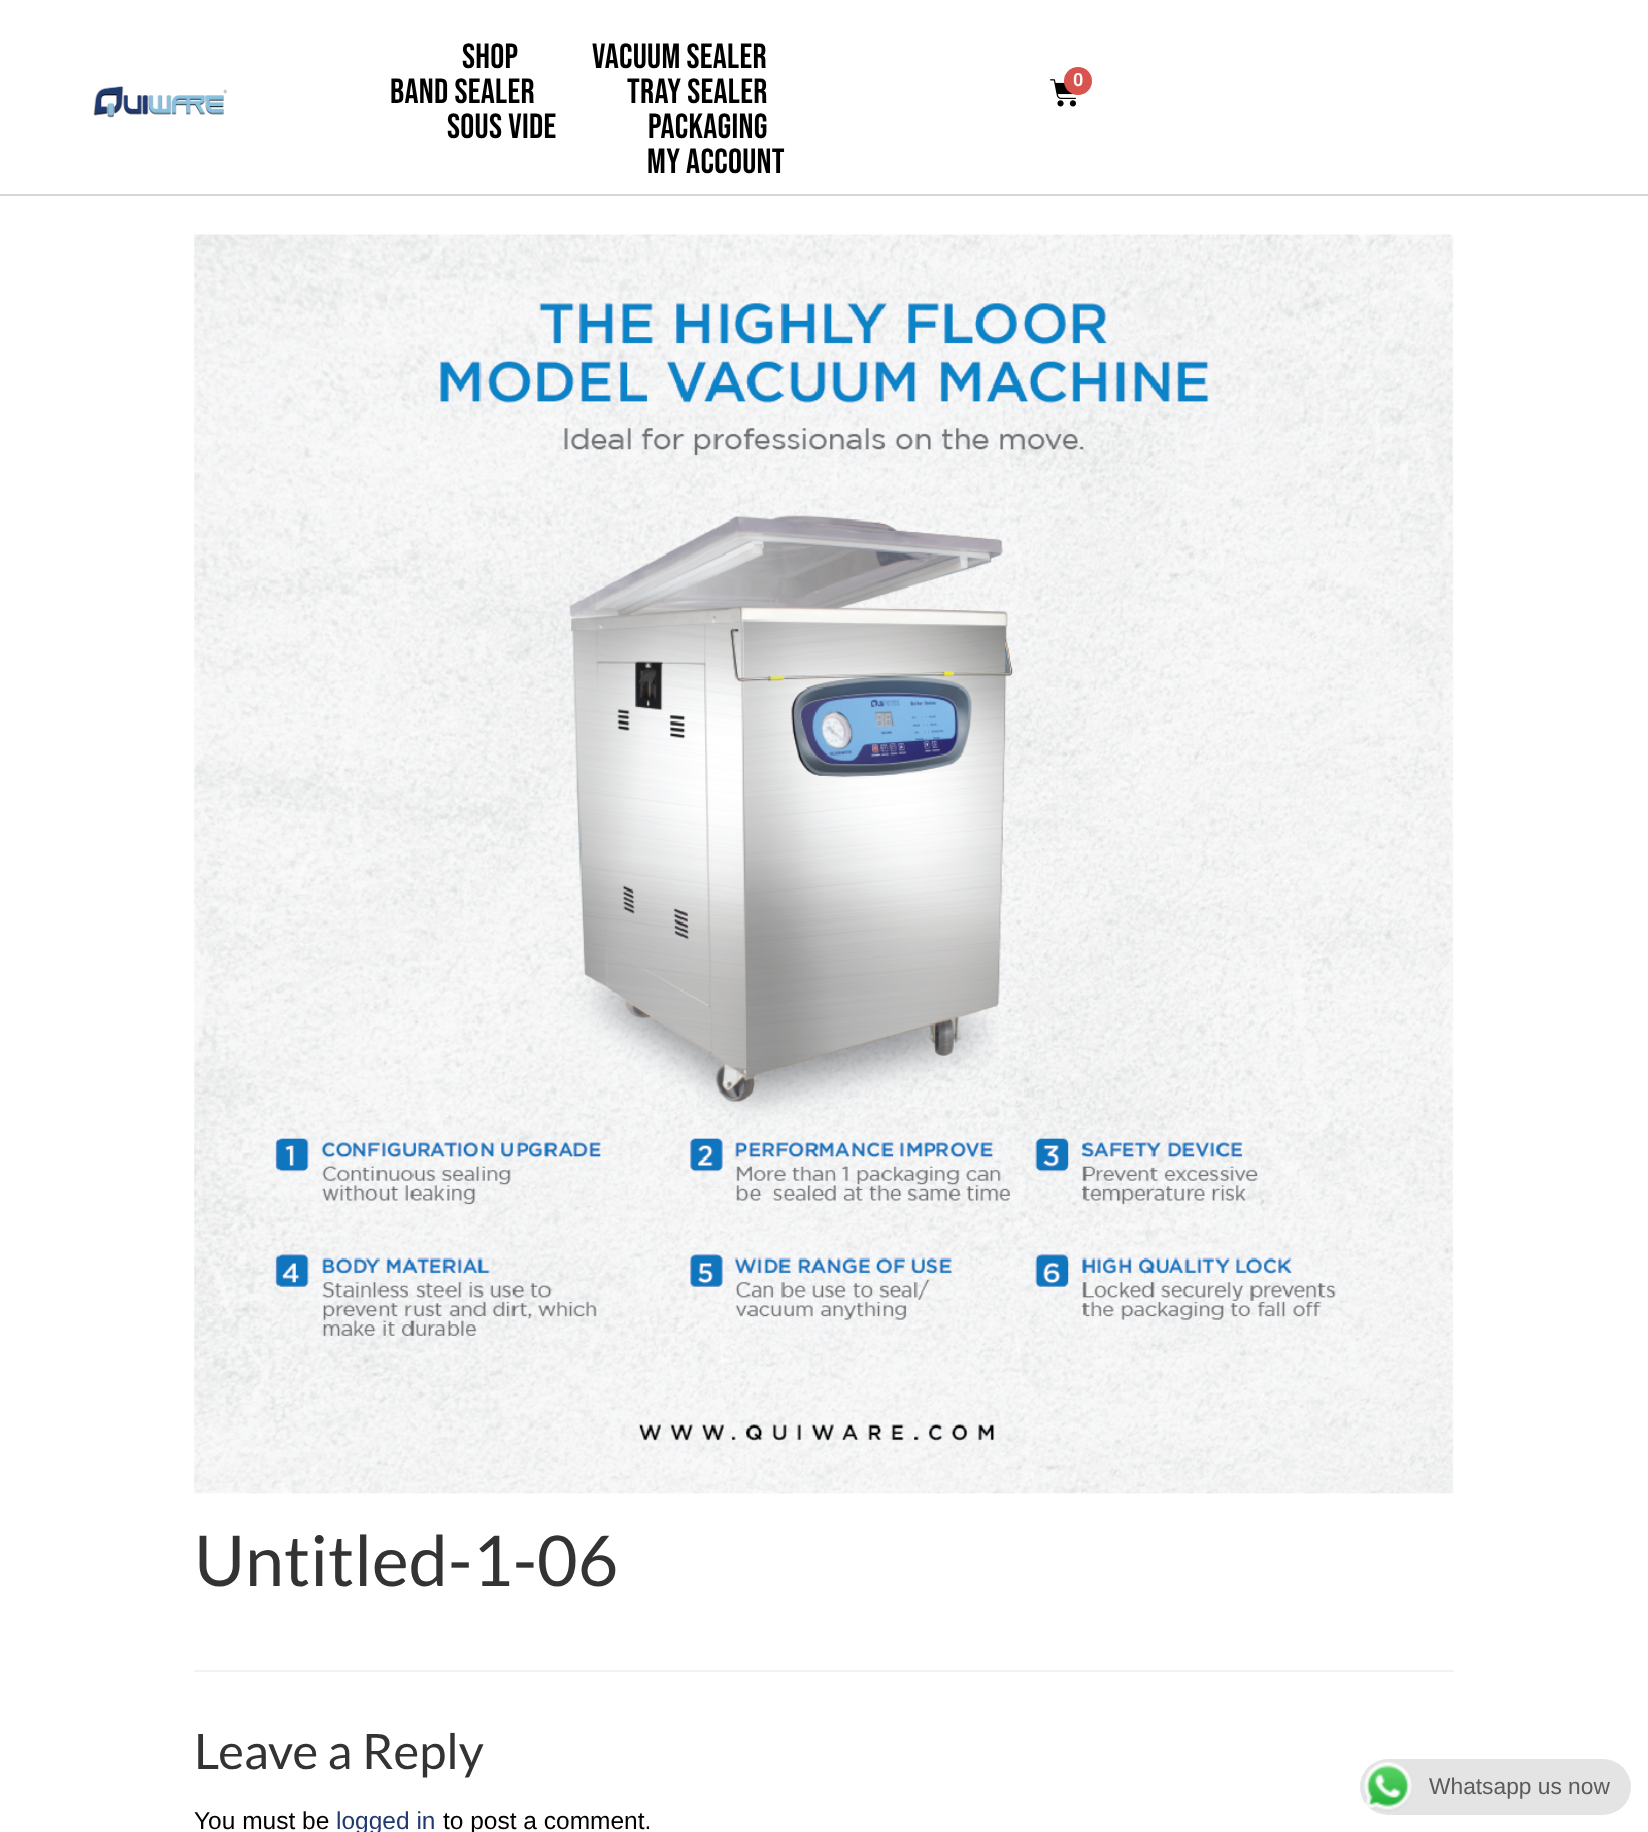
<!DOCTYPE html>
<meta charset="utf-8">
<style>body { margin: 0 } canvas { display: block }</style>
<canvas id="canvas" width="1648" height="1832"></canvas>
<img id="img1" src="img_01.png" hidden>
<img id="img2" src="img_02.png" hidden>
<img id="img3" src="img_03.png" hidden>
<img id="img4" src="img_04.png" hidden>
<script>
window.onload = function () {
	const canvas = document.getElementById("canvas");
	const ctx = canvas.getContext("2d");
	ctx.miterLimit = 4;
	ctx.fontKerning = "normal";
	function txt(s, x, y) {
		ctx.fillText(s, x, y);
	}
	function fill(x, y, w, h) {
		ctx.fillRect(x, y, w, h);
	}
	function round(x, y, w, h, r) {
		ctx.beginPath();
		ctx.roundRect(x, y, w, h, r);
		ctx.fill();
	}
	function img(id, x, y, w, h) {
		ctx.drawImage(document.getElementById(id), x, y, w, h);
	}

	ctx.fillStyle = "#FFFFFF";
	fill(0, 0, 1648, 1832);
	ctx.fillStyle = "#D6D6D6";
	fill(0, 194, 1648, 2);
	img("img1", 1050, 79, 26, 28);
	ctx.fillStyle = "#D9534F";
	ctx.beginPath();
	ctx.arc(1078, 81, 14, 0, Math.PI * 2);
	ctx.fill();
	img("img2", 93, 86, 135, 32);
	img("img3", 194, 234, 1260, 1260);
	ctx.fillStyle = "#F2F2F2";
	fill(194, 1670, 1260, 2);
	ctx.fillStyle = "#E4E4E4";
	round(1360, 1759, 271, 56, 28);
	img("img4", 1364, 1762, 48, 50);
	ctx.letterSpacing = "0.3px";
	ctx.font = "35px Bebas Neue";
	ctx.fillStyle = "#000000";
	txt("Shop", 462, 68);
	txt("Vacuum Sealer", 592, 68);
	txt("Band Sealer", 390, 103);
	txt("Tray Sealer", 627, 103);
	txt("Sous Vide", 447, 138);
	txt("Packaging", 648, 138);
	txt("My Account", 647, 173);
	ctx.letterSpacing = "0px";
	ctx.font = "600 18px Roboto";
	ctx.fillStyle = "#FFFFFF";
	txt("0", 1073, 86);
	ctx.font = "70px Lato";
	ctx.fillStyle = "#333333";
	txt("Untitled-1-06", 194, 1586);
	ctx.font = "49px Lato";
	txt("Leave a Reply", 194, 1769);
	ctx.font = "24.5px Liberation Sans";
	ctx.fillStyle = "#000000";
	txt("You must be", 194, 1829);
	ctx.fillStyle = "#203A71";
	txt("logged in", 336, 1829);
	ctx.fillStyle = "#000000";
	txt("to post a comment.", 443, 1829);
	ctx.font = "22.75px Liberation Sans";
	ctx.fillStyle = "#5B5B5B";
	txt("Whatsapp us now", 1429, 1794);
};
</script>
